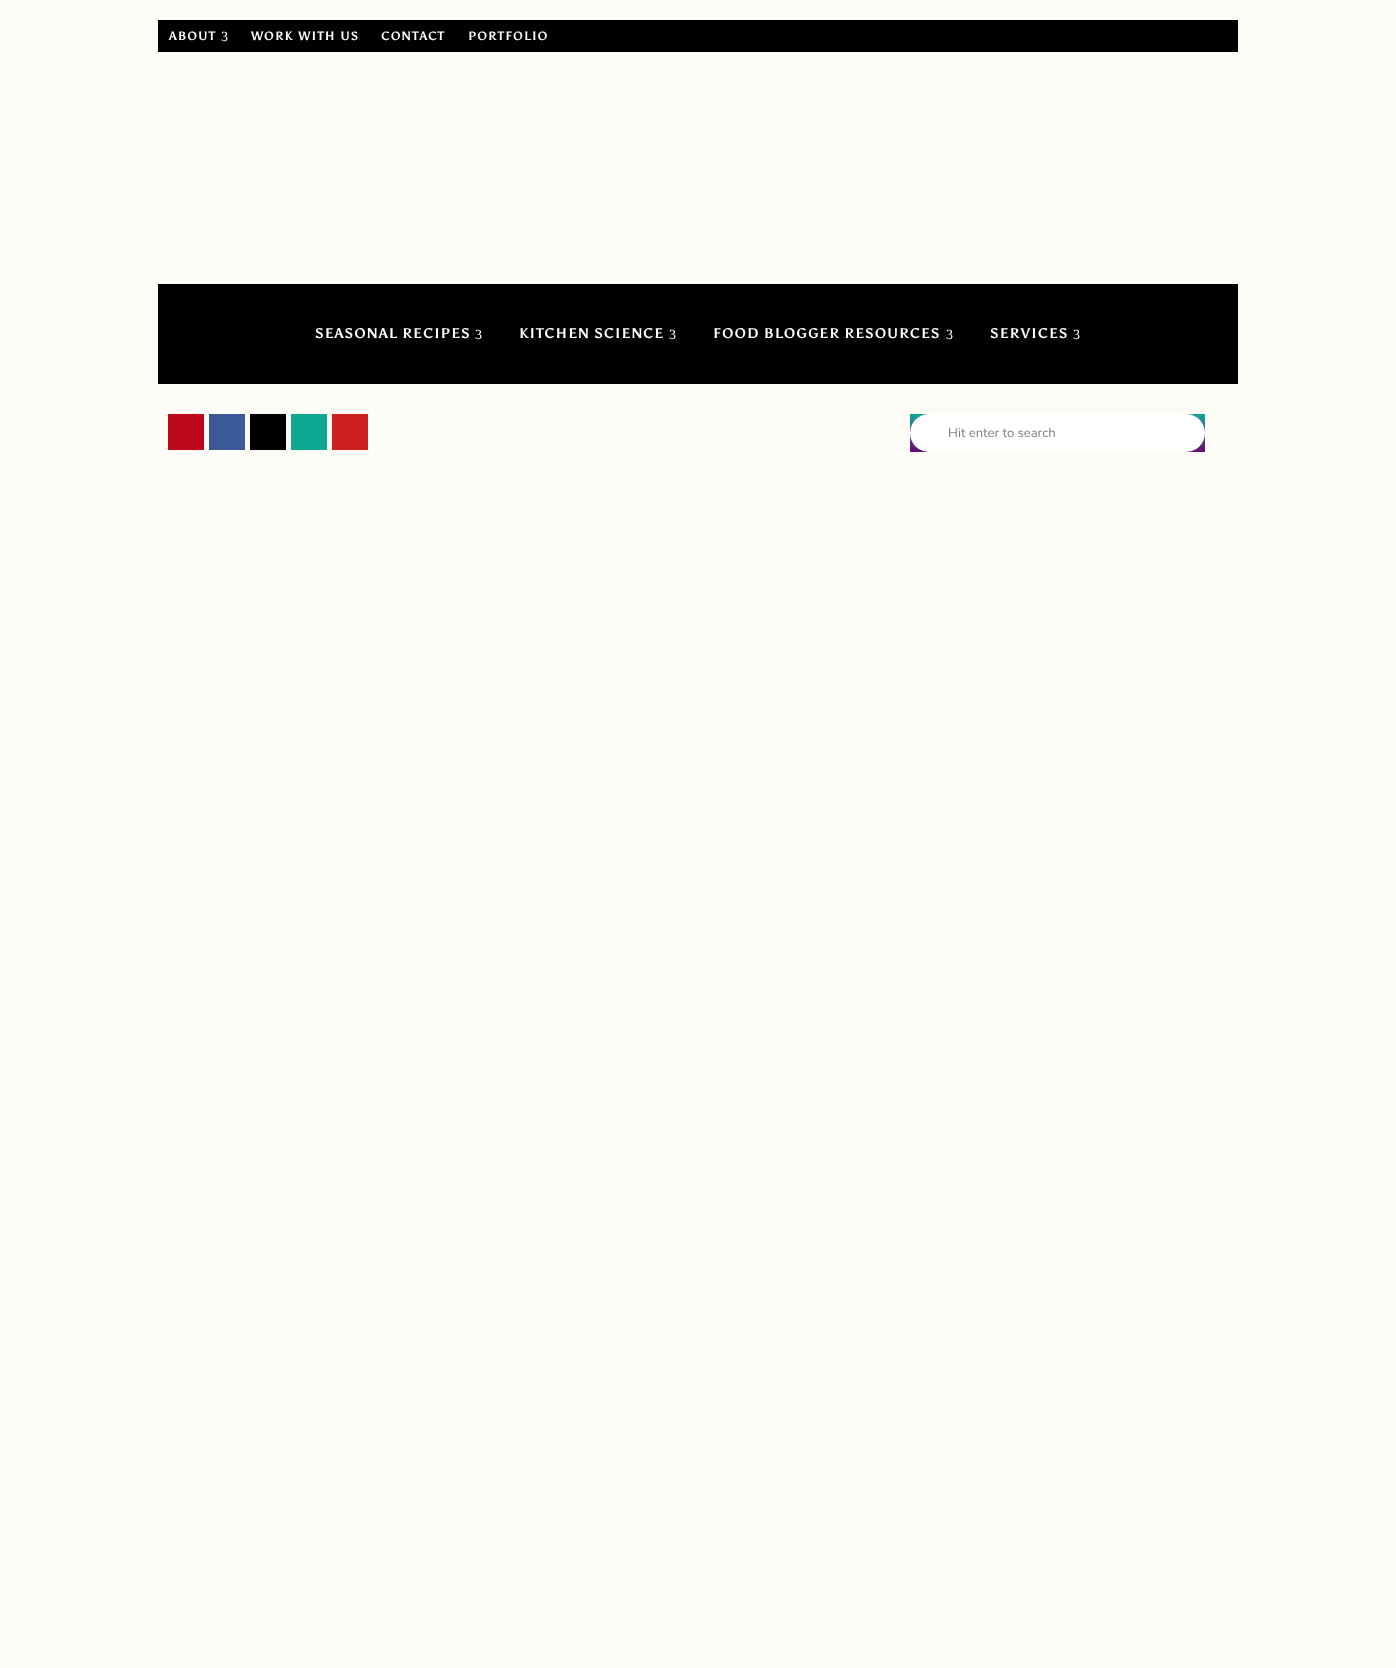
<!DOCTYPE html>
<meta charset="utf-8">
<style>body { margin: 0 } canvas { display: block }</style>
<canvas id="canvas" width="1396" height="1668"></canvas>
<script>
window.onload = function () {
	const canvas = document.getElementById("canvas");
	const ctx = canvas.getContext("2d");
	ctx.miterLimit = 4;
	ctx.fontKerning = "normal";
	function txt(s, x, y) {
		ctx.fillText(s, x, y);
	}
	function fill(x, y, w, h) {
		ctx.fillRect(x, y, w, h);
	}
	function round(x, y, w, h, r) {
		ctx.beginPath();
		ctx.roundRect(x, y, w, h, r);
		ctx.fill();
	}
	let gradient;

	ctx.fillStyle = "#FDFBF6";
	fill(0, 0, 1396, 1668);
	ctx.fillStyle = "#000000";
	fill(158, 20, 1080, 32);
	fill(158, 284, 1080, 100);
	ctx.fillStyle = "#BD081C";
	fill(168, 414, 36, 36);
	ctx.fillStyle = "#3B5998";
	fill(209, 414, 36, 36);
	ctx.fillStyle = "#000000";
	fill(250, 414, 36, 36);
	ctx.fillStyle = "#0DA892";
	fill(291, 414, 36, 36);
	ctx.fillStyle = "#CD201F";
	fill(332, 414, 36, 36);
	gradient = ctx.createLinearGradient(1058, 414, 1058, 452);
	gradient.addColorStop(0, "#0DA892");
	gradient.addColorStop(1, "#690979");
	ctx.fillStyle = gradient;
	fill(910, 414, 295, 38);
	ctx.fillStyle = "rgba(0, 0, 0, 0.3)";
	ctx.filter = "blur(0.5px)";
	ctx.beginPath();
	ctx.roundRect(910, 414, 295, 38, 19);
	ctx.fill();
	ctx.filter = "none";
	ctx.fillStyle = "#FFFFFF";
	round(910, 414, 295, 38, 19);
	ctx.letterSpacing = "1px";
	ctx.font = "bold 12px Asul";
	txt("ABOUT", 169, 40);
	ctx.font = "14px Liberation Serif";
	txt("3", 221, 41);
	ctx.wordSpacing = "1px";
	ctx.font = "bold 12px Asul";
	txt("WORK WITH US", 251, 40);
	ctx.wordSpacing = "0px";
	txt("CONTACT", 381, 40);
	txt("PORTFOLIO", 468, 40);
	ctx.font = "bold 14px Asul";
	txt("SEASONAL RECIPES", 315, 338);
	ctx.font = "14px Liberation Serif";
	txt("3", 475, 339);
	ctx.font = "bold 14px Asul";
	txt("KITCHEN SCIENCE", 519, 338);
	ctx.font = "14px Liberation Serif";
	txt("3", 669, 339);
	ctx.font = "bold 14px Asul";
	txt("FOOD BLOGGER RESOURCES", 713, 338);
	ctx.font = "14px Liberation Serif";
	txt("3", 946, 339);
	ctx.font = "bold 14px Asul";
	txt("SERVICES", 990, 338);
	ctx.font = "14px Liberation Serif";
	txt("3", 1073, 339);
	ctx.letterSpacing = "0px";
	ctx.font = "13px Nunito Sans";
	ctx.fillStyle = "#808080";
	txt("Hit enter to search", 948, 437);
};
</script>
